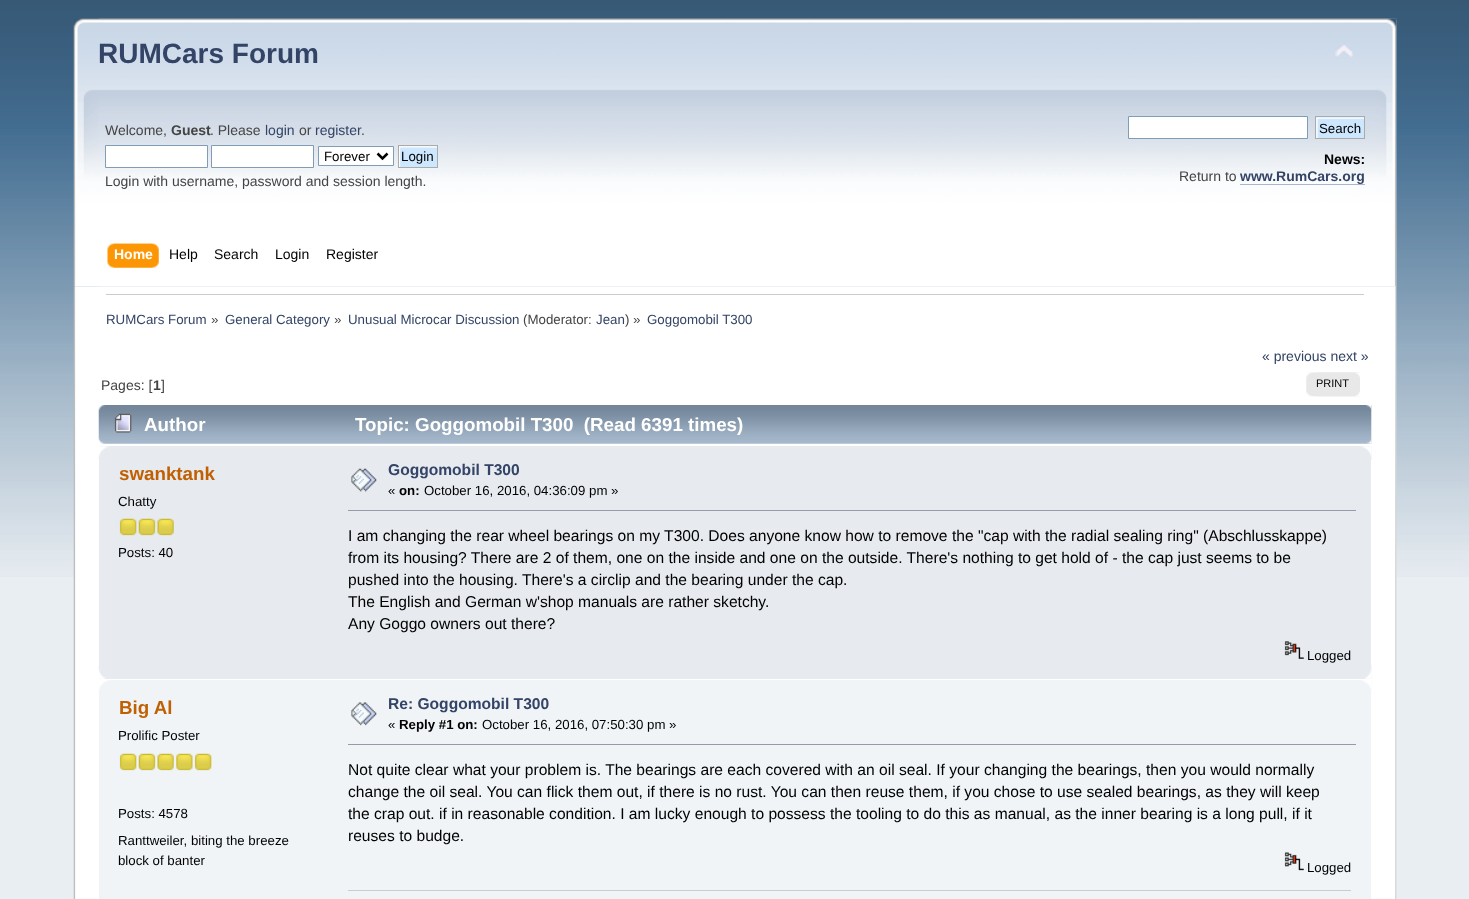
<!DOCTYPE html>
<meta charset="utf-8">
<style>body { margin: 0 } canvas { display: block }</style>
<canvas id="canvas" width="1469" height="899"></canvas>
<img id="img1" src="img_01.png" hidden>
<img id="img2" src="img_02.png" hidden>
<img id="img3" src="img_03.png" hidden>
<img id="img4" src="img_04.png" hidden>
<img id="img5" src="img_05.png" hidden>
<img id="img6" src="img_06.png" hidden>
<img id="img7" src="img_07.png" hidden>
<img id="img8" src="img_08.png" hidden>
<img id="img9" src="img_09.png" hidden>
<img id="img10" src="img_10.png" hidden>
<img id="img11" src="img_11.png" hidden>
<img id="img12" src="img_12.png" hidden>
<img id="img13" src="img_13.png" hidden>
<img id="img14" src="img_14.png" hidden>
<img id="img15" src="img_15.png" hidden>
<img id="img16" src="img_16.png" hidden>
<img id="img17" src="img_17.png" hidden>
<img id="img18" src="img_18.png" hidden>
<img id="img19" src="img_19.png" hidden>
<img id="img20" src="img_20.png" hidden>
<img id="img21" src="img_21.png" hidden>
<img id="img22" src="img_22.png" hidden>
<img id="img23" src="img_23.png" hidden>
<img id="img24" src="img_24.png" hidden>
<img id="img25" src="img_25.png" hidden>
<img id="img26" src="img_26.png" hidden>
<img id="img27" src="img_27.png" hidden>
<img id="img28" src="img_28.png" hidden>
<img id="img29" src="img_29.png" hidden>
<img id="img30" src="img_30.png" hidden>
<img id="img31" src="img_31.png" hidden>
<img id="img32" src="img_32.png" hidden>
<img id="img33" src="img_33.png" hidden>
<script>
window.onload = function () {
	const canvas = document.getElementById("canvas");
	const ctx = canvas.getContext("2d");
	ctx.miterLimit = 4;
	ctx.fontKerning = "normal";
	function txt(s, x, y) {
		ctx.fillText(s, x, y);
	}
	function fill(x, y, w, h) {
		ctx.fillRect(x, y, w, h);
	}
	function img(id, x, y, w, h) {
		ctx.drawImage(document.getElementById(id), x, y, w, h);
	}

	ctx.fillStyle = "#E9EEF2";
	fill(0, 0, 1469, 899);
	img("img1", 0, 0, 1469, 577);
	img("img2", 73, 18, 1324, 269);
	img("img3", 98, 18, 1299, 269);
	img("img4", 1335, 45, 18, 13);
	ctx.fillStyle = "#FFFFFF";
	ctx.beginPath();
	ctx.rect(105.5, 145.5, 102, 22);
	ctx.fill();
	ctx.strokeStyle = "#7F9DB9";
	ctx.stroke();
	ctx.beginPath();
	ctx.rect(211.5, 145.5, 102, 22);
	ctx.fill();
	ctx.stroke();
	ctx.beginPath();
	ctx.rect(318.5, 146.5, 75, 19);
	ctx.fill();
	ctx.stroke();
	ctx.beginPath();
	ctx.moveTo(377.5, 153.5);
	ctx.lineTo(382.5, 158.5);
	ctx.lineTo(387.5, 153.5);
	ctx.strokeStyle = "#000000";
	ctx.lineWidth = 2.5;
	ctx.stroke();
	img("img5", 399, 146, 38, 21);
	ctx.strokeStyle = "#AAAAAA";
	ctx.lineWidth = 1;
	ctx.strokeRect(398.5, 145.5, 39, 22);
	ctx.beginPath();
	ctx.rect(1128.5, 116.5, 179, 22);
	ctx.fill();
	ctx.strokeStyle = "#7F9DB9";
	ctx.stroke();
	ctx.fillStyle = "#CDE7FF";
	fill(1316, 117, 48, 21);
	img("img6", 1316, 117, 48, 21);
	ctx.strokeStyle = "#AAAAAA";
	ctx.strokeRect(1315.5, 116.5, 49, 22);
	ctx.fillStyle = "#A8B6CF";
	fill(1240, 184, 125, 1);
	img("img7", 113, 243, 46, 25);
	img("img8", 107, 243, 46, 25);
	img("img9", 73, 286, 1324, 613);
	img("img10", 1395, 286, 2, 613);
	ctx.fillStyle = "#CCCCCC";
	fill(106, 294, 1258, 1);
	img("img11", 1306, 372, 54, 25);
	img("img12", 1316, 372, 44, 25);
	img("img13", 98, 405, 1274, 39);
	img("img14", 1366, 405, 6, 39);
	img("img15", 114, 413, 18, 20);
	ctx.fillStyle = "#E7EAEF";
	fill(99, 446, 1272, 233);
	img("img16", 98, 446, 1274, 14);
	img("img17", 1361, 446, 11, 14);
	img("img18", 119, 518, 18, 18);
	img("img19", 138, 518, 18, 18);
	img("img20", 157, 518, 17, 18);
	img("img21", 351, 468, 26, 24);
	ctx.fillStyle = "#9999AA";
	fill(348, 510, 1008, 1);
	img("img22", 1284, 641, 20, 18);
	img("img23", 98, 665, 1274, 14);
	img("img24", 1365, 665, 7, 14);
	ctx.fillStyle = "#F0F4F7";
	fill(99, 693, 1272, 206);
	img("img25", 98, 680, 1274, 13);
	img("img26", 1361, 680, 10, 9);
	img("img27", 119, 753, 18, 18);
	img("img28", 138, 753, 18, 18);
	img("img29", 157, 753, 17, 18);
	img("img30", 176, 753, 17, 18);
	img("img31", 194, 753, 18, 18);
	img("img32", 351, 702, 26, 24);
	ctx.fillStyle = "#9999AA";
	fill(348, 744, 1008, 1);
	img("img33", 1284, 852, 20, 19);
	ctx.fillStyle = "#CCCCCC";
	fill(348, 890, 1003, 1);
	ctx.font = "bold 28px Liberation Sans";
	ctx.fillStyle = "#334466";
	txt("RUMCars Forum", 98, 63);
	ctx.font = "14px Liberation Sans";
	ctx.fillStyle = "#444444";
	txt("Welcome,", 105, 135);
	ctx.font = "bold 14px Liberation Sans";
	txt("Guest", 171, 135);
	ctx.font = "14px Liberation Sans";
	txt(". Please", 210, 135);
	ctx.fillStyle = "#334466";
	txt("login", 265, 135);
	ctx.fillStyle = "#444444";
	txt("or", 299, 135);
	ctx.fillStyle = "#334466";
	txt("register", 315, 135);
	ctx.fillStyle = "#444444";
	txt(".", 361, 135);
	ctx.font = "13.3px Liberation Sans";
	ctx.fillStyle = "#000000";
	txt("Forever", 324, 161);
	txt("Login", 401, 161);
	ctx.font = "14px Liberation Sans";
	ctx.fillStyle = "#444444";
	txt("Login with username, password and session length.", 105, 186);
	ctx.font = "13.3px Liberation Sans";
	ctx.fillStyle = "#000000";
	txt("Search", 1319, 133);
	ctx.font = "bold 14px Liberation Sans";
	txt("News:", 1324, 164);
	ctx.font = "14px Liberation Sans";
	ctx.fillStyle = "#444444";
	txt("Return to", 1179, 181);
	ctx.font = "bold 14px Liberation Sans";
	ctx.fillStyle = "#334466";
	txt("www.RumCars.org", 1240, 181);
	ctx.fillStyle = "#FFFFFF";
	txt("Home", 114, 259);
	ctx.font = "14px Liberation Sans";
	ctx.fillStyle = "#000000";
	txt("Help", 169, 259);
	txt("Search", 214, 259);
	txt("Login", 275, 259);
	txt("Register", 326, 259);
	ctx.font = "13.3px Liberation Sans";
	ctx.fillStyle = "#334466";
	txt("RUMCars Forum", 106, 324);
	ctx.fillStyle = "#444444";
	txt("»", 211, 324);
	ctx.fillStyle = "#334466";
	txt("General Category", 225, 324);
	ctx.fillStyle = "#444444";
	txt("»", 334, 324);
	ctx.fillStyle = "#334466";
	txt("Unusual Microcar Discussion", 348, 324);
	ctx.fillStyle = "#444444";
	txt("(Moderator:", 523, 324);
	ctx.fillStyle = "#334466";
	txt("Jean", 596, 324);
	ctx.fillStyle = "#444444";
	txt(") »", 625, 324);
	ctx.fillStyle = "#334466";
	txt("Goggomobil T300", 647, 324);
	ctx.font = "14px Liberation Sans";
	txt("« previous next »", 1262, 361);
	ctx.fillStyle = "#444444";
	txt("Pages: [", 101, 390);
	ctx.font = "bold 14px Liberation Sans";
	txt("1", 153, 390);
	ctx.font = "14px Liberation Sans";
	txt("]", 161, 390);
	ctx.font = "11px Liberation Sans";
	ctx.fillStyle = "#000000";
	txt("PRINT", 1316, 387);
	ctx.font = "bold 18.75px Liberation Sans";
	ctx.fillStyle = "#FFFFFF";
	txt("Author", 144, 431);
	txt("Topic: Goggomobil T300  (Read 6391 times)", 355, 431);
	ctx.fillStyle = "#C06002";
	txt("swanktank", 119, 480);
	ctx.font = "13.25px Liberation Sans";
	ctx.fillStyle = "#000000";
	txt("Chatty", 118, 506);
	txt("Posts: 40", 118, 557);
	ctx.font = "bold 15.6px Liberation Sans";
	ctx.fillStyle = "#334466";
	txt("Goggomobil T300", 388, 475);
	ctx.font = "13.25px Liberation Sans";
	ctx.fillStyle = "#000000";
	txt("«", 388, 495);
	ctx.font = "bold 13.25px Liberation Sans";
	txt("on:", 399, 495);
	ctx.font = "13.25px Liberation Sans";
	txt("October 16, 2016, 04:36:09 pm »", 424, 495);
	ctx.font = "15.6px Liberation Sans";
	txt("I am changing the rear wheel bearings on my T300. Does anyone know how to remove the \"cap with the radial sealing ring\" (Abschlusskappe)", 348, 541);
	txt("from its housing? There are 2 of them, one on the inside and one on the outside. There's nothing to get hold of - the cap just seems to be", 348, 563);
	txt("pushed into the housing. There's a circlip and the bearing under the cap.", 348, 585);
	txt("The English and German w'shop manuals are rather sketchy.", 348, 607);
	txt("Any Goggo owners out there?", 348, 629);
	ctx.font = "13.25px Liberation Sans";
	txt("Logged", 1307, 660);
	ctx.font = "bold 18.75px Liberation Sans";
	ctx.fillStyle = "#C06002";
	txt("Big Al", 119, 714);
	ctx.font = "13.25px Liberation Sans";
	ctx.fillStyle = "#000000";
	txt("Prolific Poster", 118, 740);
	txt("Posts: 4578", 118, 818);
	txt("Ranttweiler, biting the breeze", 118, 845);
	txt("block of banter", 118, 865);
	ctx.font = "bold 15.6px Liberation Sans";
	ctx.fillStyle = "#334466";
	txt("Re: Goggomobil T300", 388, 709);
	ctx.font = "13.25px Liberation Sans";
	ctx.fillStyle = "#000000";
	txt("«", 388, 729);
	ctx.font = "bold 13.25px Liberation Sans";
	txt("Reply #1 on:", 399, 729);
	ctx.font = "13.25px Liberation Sans";
	txt("October 16, 2016, 07:50:30 pm »", 482, 729);
	ctx.font = "15.6px Liberation Sans";
	txt("Not quite clear what your problem is. The bearings are each covered with an oil seal. If your changing the bearings, then you would normally", 348, 775);
	txt("change the oil seal. You can flick them out, if there is no rust. You can then reuse them, if you chose to use sealed bearings, as they will keep", 348, 797);
	txt("the crap out. if in reasonable condition. I am lucky enough to possess the tooling to do this as manual, as the inner bearing is a long pull, if it", 348, 819);
	txt("reuses to budge.", 348, 841);
	ctx.font = "13.25px Liberation Sans";
	txt("Logged", 1307, 872);
};
</script>
